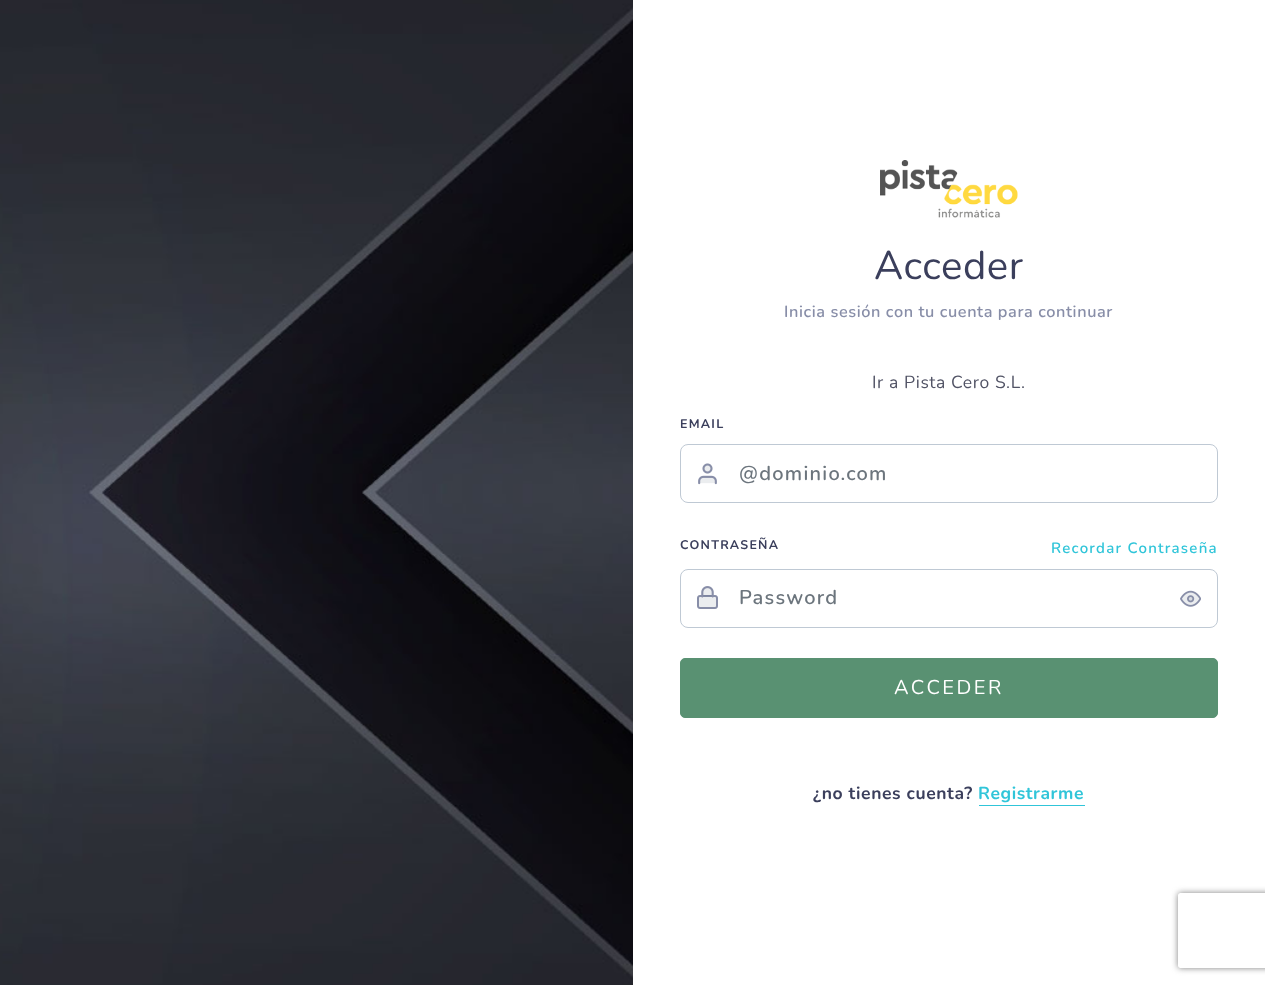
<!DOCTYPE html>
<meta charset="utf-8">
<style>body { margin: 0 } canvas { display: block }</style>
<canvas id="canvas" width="1265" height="985"></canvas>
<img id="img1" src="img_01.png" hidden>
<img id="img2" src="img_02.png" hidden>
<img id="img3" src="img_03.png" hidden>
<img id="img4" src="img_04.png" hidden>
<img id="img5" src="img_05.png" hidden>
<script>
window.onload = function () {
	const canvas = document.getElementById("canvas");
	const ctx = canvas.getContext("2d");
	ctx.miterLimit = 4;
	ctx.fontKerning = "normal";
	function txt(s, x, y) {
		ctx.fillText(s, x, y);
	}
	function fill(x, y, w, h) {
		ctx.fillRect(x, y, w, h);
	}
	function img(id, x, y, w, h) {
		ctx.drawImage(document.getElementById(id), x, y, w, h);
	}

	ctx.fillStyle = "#FFFFFF";
	fill(0, 0, 1265, 985);
	img("img1", 0, 0, 633, 985);
	img("img2", 880, 160, 138, 58);
	ctx.beginPath();
	ctx.roundRect(680.5, 444.5, 537, 58, 7.5);
	ctx.strokeStyle = "#BFC9D4";
	ctx.stroke();
	img("img3", 698, 463, 19, 22);
	ctx.beginPath();
	ctx.roundRect(680.5, 569.5, 537, 58, 7.5);
	ctx.stroke();
	img("img4", 697, 586, 21, 23);
	img("img5", 1180, 590, 21, 17);
	ctx.fillStyle = "#599172";
	ctx.beginPath();
	ctx.roundRect(680.5, 658.5, 537, 59, 4.5);
	ctx.fill();
	ctx.strokeStyle = "#599172";
	ctx.stroke();
	ctx.fillStyle = "#30C5D9";
	fill(979, 805, 106, 1);
	ctx.save();
	ctx.beginPath();
	ctx.moveTo(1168, 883);
	ctx.lineTo(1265, 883);
	ctx.lineTo(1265, 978);
	ctx.lineTo(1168, 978);
	ctx.closePath();
	ctx.moveTo(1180.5, 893);
	ctx.lineTo(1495.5, 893);
	ctx.bezierCurveTo(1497, 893, 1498, 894, 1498, 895.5);
	ctx.lineTo(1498, 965.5);
	ctx.bezierCurveTo(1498, 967, 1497, 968, 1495.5, 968);
	ctx.lineTo(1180.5, 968);
	ctx.bezierCurveTo(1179, 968, 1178, 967, 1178, 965.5);
	ctx.lineTo(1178, 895.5);
	ctx.bezierCurveTo(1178, 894, 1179, 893, 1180.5, 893);
	ctx.closePath();
	ctx.clip("evenodd");
	ctx.fillStyle = "#808080";
	ctx.filter = "blur(3px)";
	ctx.beginPath();
	ctx.roundRect(1178, 893, 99, 75, 2.5);
	ctx.fill();
	ctx.filter = "none";
	ctx.restore();
	ctx.letterSpacing = "0.6px";
	ctx.font = "40px Nunito";
	ctx.fillStyle = "#3B3F5C";
	txt("Acceder", 874, 279);
	ctx.font = "600 16.25px Nunito";
	ctx.fillStyle = "#888EA8";
	txt("Inicia sesión con tu cuenta para continuar", 784, 317);
	ctx.font = "17.5px Nunito";
	ctx.fillStyle = "#515365";
	txt("Ir a Pista Cero S.L.", 872, 388);
	ctx.letterSpacing = "1.25px";
	ctx.font = "bold 12.5px Nunito";
	ctx.fillStyle = "#3B3F5C";
	txt("EMAIL", 680, 428);
	ctx.font = "600 20px Nunito";
	ctx.fillStyle = "#6C757D";
	txt("@dominio.com", 739, 480);
	ctx.font = "bold 12.5px Nunito";
	ctx.fillStyle = "#3B3F5C";
	txt("CONTRASEÑA", 680, 549);
	ctx.font = "600 15px Nunito";
	ctx.fillStyle = "#30C5D9";
	txt("Recordar Contraseña", 1051, 553);
	ctx.font = "600 20px Nunito";
	ctx.fillStyle = "#6C757D";
	txt("Password", 739, 604);
	ctx.letterSpacing = "2.5px";
	ctx.font = "20px Nunito";
	ctx.fillStyle = "#FFFFFF";
	txt("ACCEDER", 894, 694);
	ctx.letterSpacing = "0.6px";
	ctx.font = "bold 17.5px Nunito";
	ctx.fillStyle = "#3B3F5C";
	txt("¿no tienes cuenta?", 813, 799);
	ctx.fillStyle = "#30C5D9";
	txt("Registrarme", 978, 799);
};
</script>
